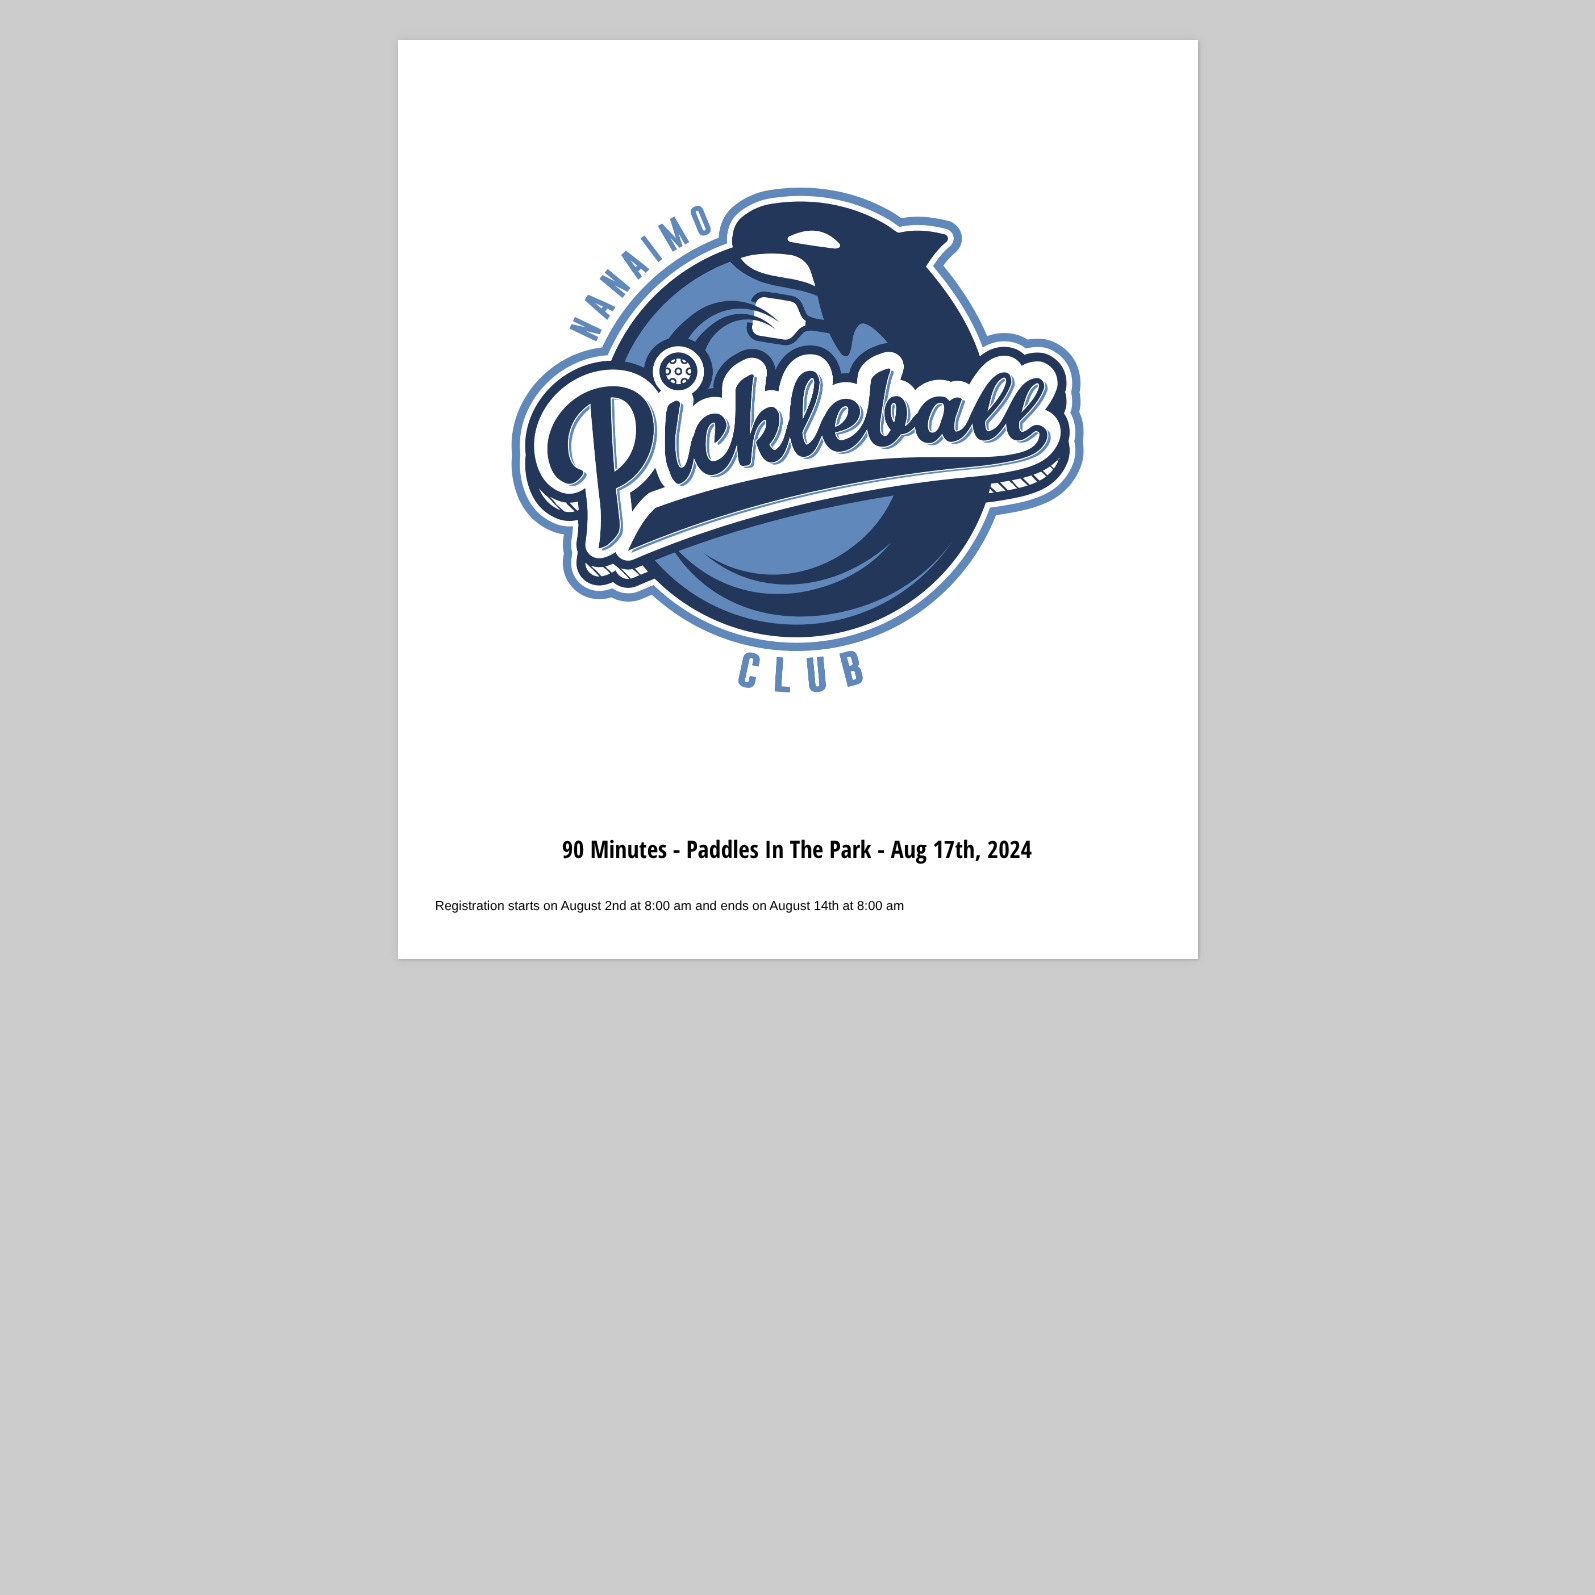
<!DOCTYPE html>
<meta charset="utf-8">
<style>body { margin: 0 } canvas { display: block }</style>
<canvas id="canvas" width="1595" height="1595"></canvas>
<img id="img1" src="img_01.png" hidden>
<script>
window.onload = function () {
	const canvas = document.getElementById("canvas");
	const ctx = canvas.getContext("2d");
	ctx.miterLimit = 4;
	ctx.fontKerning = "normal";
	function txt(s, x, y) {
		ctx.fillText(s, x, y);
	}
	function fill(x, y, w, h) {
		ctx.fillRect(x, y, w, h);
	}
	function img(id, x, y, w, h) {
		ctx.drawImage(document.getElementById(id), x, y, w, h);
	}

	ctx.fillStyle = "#CCCCCC";
	fill(0, 0, 1595, 1595);
	ctx.fillStyle = "rgba(0, 0, 0, 0.1)";
	ctx.filter = "blur(1px)";
	ctx.beginPath();
	ctx.rect(399, 41, 800, 919);
	ctx.fill();
	ctx.filter = "none";
	ctx.filter = "blur(5px)";
	ctx.beginPath();
	ctx.rect(398, 40, 800, 919);
	ctx.fill();
	ctx.filter = "none";
	ctx.fillStyle = "#FFFFFF";
	fill(398, 40, 800, 919);
	img("img1", 511, 187, 573, 506);
	ctx.font = "bold 24px Open Sans Condensed";
	ctx.fillStyle = "#000000";
	txt("90 Minutes - Paddles In The Park - Aug 17th, 2024", 562, 858);
	ctx.font = "13px Liberation Sans";
	txt("Registration starts on August 2nd at 8:00 am and ends on August 14th at 8:00 am", 435, 910);
};
</script>
